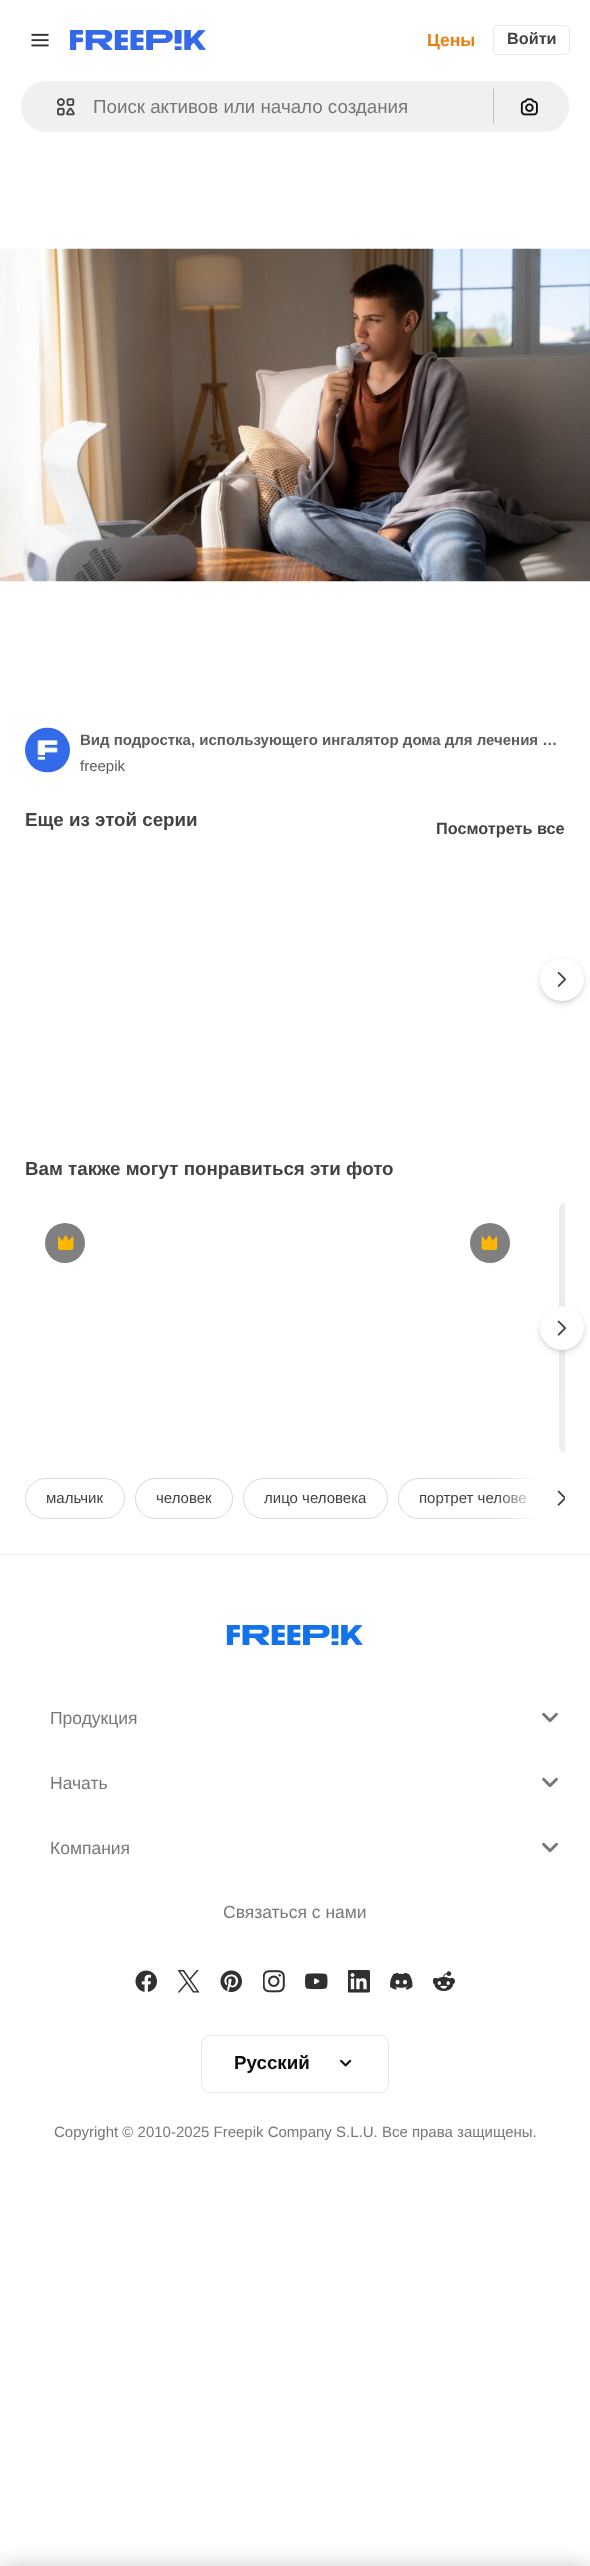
<!DOCTYPE html>
<meta charset="utf-8">
<style>body { margin: 0 } canvas { display: block }</style>
<canvas id="canvas" width="590" height="2566"></canvas>
<img id="img1" src="img_01.png" hidden>
<img id="img2" src="img_02.png" hidden>
<img id="img3" src="img_03.png" hidden>
<img id="img4" src="img_04.png" hidden>
<img id="img5" src="img_05.png" hidden>
<img id="img6" src="img_06.png" hidden>
<img id="img7" src="img_07.png" hidden>
<img id="img8" src="img_08.png" hidden>
<img id="img9" src="img_09.png" hidden>
<img id="img10" src="img_10.png" hidden>
<img id="img11" src="img_11.png" hidden>
<img id="img12" src="img_12.png" hidden>
<img id="img13" src="img_13.png" hidden>
<img id="img14" src="img_14.png" hidden>
<img id="img15" src="img_15.png" hidden>
<img id="img16" src="img_16.png" hidden>
<img id="img17" src="img_17.png" hidden>
<img id="img18" src="img_18.png" hidden>
<img id="img19" src="img_19.png" hidden>
<img id="img20" src="img_20.png" hidden>
<img id="img21" src="img_21.png" hidden>
<img id="img22" src="img_22.png" hidden>
<script>
window.onload = function () {
	const canvas = document.getElementById("canvas");
	const ctx = canvas.getContext("2d");
	ctx.miterLimit = 4;
	ctx.fontKerning = "normal";
	function txt(s, x, y) {
		ctx.fillText(s, x, y);
	}
	function fill(x, y, w, h) {
		ctx.fillRect(x, y, w, h);
	}
	function round(x, y, w, h, r) {
		ctx.beginPath();
		ctx.roundRect(x, y, w, h, r);
		ctx.fill();
	}
	function img(id, x, y, w, h) {
		ctx.drawImage(document.getElementById(id), x, y, w, h);
	}
	let gradient;

	ctx.fillStyle = "#FFFFFF";
	fill(0, 0, 590, 2566);
	img("img1", 31, 33, 18, 14);
	img("img2", 70, 30, 136, 20);
	ctx.beginPath();
	ctx.roundRect(493.5, 25.5, 76, 29, 4.5);
	ctx.strokeStyle = "#E7E7E7";
	ctx.stroke();
	ctx.fillStyle = "#F0F0F0";
	ctx.beginPath();
	ctx.roundRect(20.5, 80.5, 549, 52, 26);
	ctx.fill();
	ctx.strokeStyle = "#FFFFFF";
	ctx.stroke();
	img("img3", 56, 98, 19, 18);
	ctx.fillStyle = "#C3C3C3";
	fill(493, 89, 1, 35);
	img("img4", 520, 98, 18, 18);
	img("img5", 0, 248, 590, 334);
	img("img6", 25, 727, 45, 46);
	ctx.fillStyle = "rgba(55, 73, 87, 0.15)";
	ctx.filter = "blur(3px)";
	ctx.beginPath();
	ctx.roundRect(540, 960, 44, 44, 22);
	ctx.fill();
	ctx.filter = "none";
	ctx.fillStyle = "rgba(55, 73, 87, 0.1)";
	ctx.filter = "blur(1px)";
	ctx.beginPath();
	ctx.roundRect(540, 959, 44, 44, 22);
	ctx.fill();
	ctx.filter = "none";
	ctx.fillStyle = "#FFFFFF";
	round(540, 958, 44, 43, 21.5);
	img("img7", 557, 971, 10, 16);
	ctx.fillStyle = "#808080";
	ctx.beginPath();
	ctx.arc(65, 1243, 20, 0, Math.PI * 2);
	ctx.fill();
	img("img8", 58, 1235, 16, 15);
	ctx.beginPath();
	ctx.arc(490, 1243, 20, 0, Math.PI * 2);
	ctx.fill();
	img("img9", 481, 1235, 17, 15);
	gradient = ctx.createLinearGradient(563, 1192, 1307, 1463);
	gradient.addColorStop(0.08, "#ECECEC");
	gradient.addColorStop(0.18, "#F5F5F5");
	gradient.addColorStop(0.33, "#ECECEC");
	ctx.fillStyle = gradient;
	ctx.beginPath();
	ctx.roundRect(559, 1203, 6, 250, [8, 0, 0, 8]);
	ctx.fill();
	ctx.fillStyle = "rgba(55, 73, 87, 0.15)";
	ctx.filter = "blur(3px)";
	ctx.beginPath();
	ctx.roundRect(540, 1309, 44, 44, 22);
	ctx.fill();
	ctx.filter = "none";
	ctx.fillStyle = "rgba(55, 73, 87, 0.1)";
	ctx.filter = "blur(1px)";
	ctx.beginPath();
	ctx.roundRect(540, 1308, 44, 43, 21.5);
	ctx.fill();
	ctx.filter = "none";
	ctx.fillStyle = "#FFFFFF";
	ctx.beginPath();
	ctx.arc(562, 1328, 22, 0, Math.PI * 2);
	ctx.fill();
	img("img10", 557, 1320, 10, 16);
	ctx.beginPath();
	ctx.roundRect(25.5, 1478.5, 99, 40, 20);
	ctx.strokeStyle = "#D8D8D8";
	ctx.stroke();
	ctx.beginPath();
	ctx.roundRect(135.5, 1478.5, 97, 40, 20);
	ctx.stroke();
	ctx.beginPath();
	ctx.roundRect(243.5, 1478.5, 144, 40, 20);
	ctx.stroke();
	ctx.beginPath();
	ctx.roundRect(398.5, 1478.5, 164, 40, 20);
	ctx.stroke();
	fill(540, 1478, 23, 41);
	img("img11", 557, 1490, 8, 16);
	ctx.fillStyle = "#F0F0F0";
	fill(0, 1554, 590, 1);
	img("img12", 226, 1625, 137, 20);
	img("img13", 542, 1712, 16, 11);
	img("img13", 542, 1777, 16, 11);
	img("img13", 542, 1842, 16, 11);
	img("img14", 135, 1970, 22, 22);
	img("img15", 178, 1970, 22, 23);
	img("img16", 220, 1970, 22, 22);
	img("img17", 263, 1970, 22, 23);
	img("img18", 305, 1973, 23, 17);
	img("img19", 348, 1970, 22, 23);
	img("img20", 390, 1972, 23, 18);
	img("img21", 433, 1971, 22, 20);
	ctx.beginPath();
	ctx.roundRect(201.5, 2035.5, 187, 57, 8.5);
	ctx.strokeStyle = "#E6E6E6";
	ctx.stroke();
	img("img22", 340, 2059, 12, 8);
	ctx.fillStyle = "rgba(0, 0, 0, 0.2)";
	ctx.filter = "blur(11px)";
	ctx.beginPath();
	ctx.rect(0, 2566, 590, 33);
	ctx.fill();
	ctx.filter = "none";
	ctx.font = "bold 17.5px Liberation Sans";
	ctx.fillStyle = "#EA7E11";
	txt("Цены", 427, 46);
	ctx.font = "bold 16.25px Liberation Sans";
	ctx.fillStyle = "#424242";
	txt("Войти", 507, 44);
	ctx.save();
	ctx.beginPath();
	ctx.rect(93, 95, 392, 21);
	ctx.clip();
	ctx.font = "18.75px Liberation Sans";
	ctx.fillStyle = "#777777";
	txt("Поиск активов или начало создания", 93, 113);
	ctx.restore();
	ctx.font = "bold 15px Liberation Sans";
	ctx.fillStyle = "#5C5C5C";
	txt("Вид подростка, использующего ингалятор дома для лечения …", 80, 745);
	ctx.font = "15px Liberation Sans";
	txt("freepik", 80, 771);
	ctx.font = "bold 18.75px Liberation Sans";
	ctx.fillStyle = "#424242";
	txt("Еще из этой серии", 25, 826);
	ctx.font = "bold 16.25px Liberation Sans";
	txt("Посмотреть все", 436, 834);
	ctx.font = "bold 18.75px Liberation Sans";
	txt("Вам также могут понравиться эти фото", 25, 1175);
	ctx.font = "15px Liberation Sans";
	txt("мальчик", 46, 1503);
	txt("человек", 156, 1503);
	txt("лицо человека", 264, 1503);
	txt("портрет челове", 419, 1503);
	gradient = ctx.createLinearGradient(540, 1498, 496, 1498);
	gradient.addColorStop(0, "#FFFFFF");
	gradient.addColorStop(1, "rgba(255, 255, 255, 0)");
	ctx.fillStyle = gradient;
	fill(497, 1478, 43, 41);
	ctx.font = "17.5px Liberation Sans";
	ctx.fillStyle = "#777777";
	txt("Продукция", 50, 1724);
	txt("Начать", 50, 1789);
	txt("Компания", 50, 1854);
	txt("Связаться с нами", 223, 1918);
	ctx.font = "bold 18.75px Liberation Sans";
	ctx.fillStyle = "#0D0D0D";
	txt("Pусский", 234, 2069);
	ctx.font = "15px Liberation Sans";
	ctx.fillStyle = "#777777";
	txt("Copyright © 2010-2025 Freepik Company S.L.U. Все права защищены.", 54, 2137);
};
</script>
